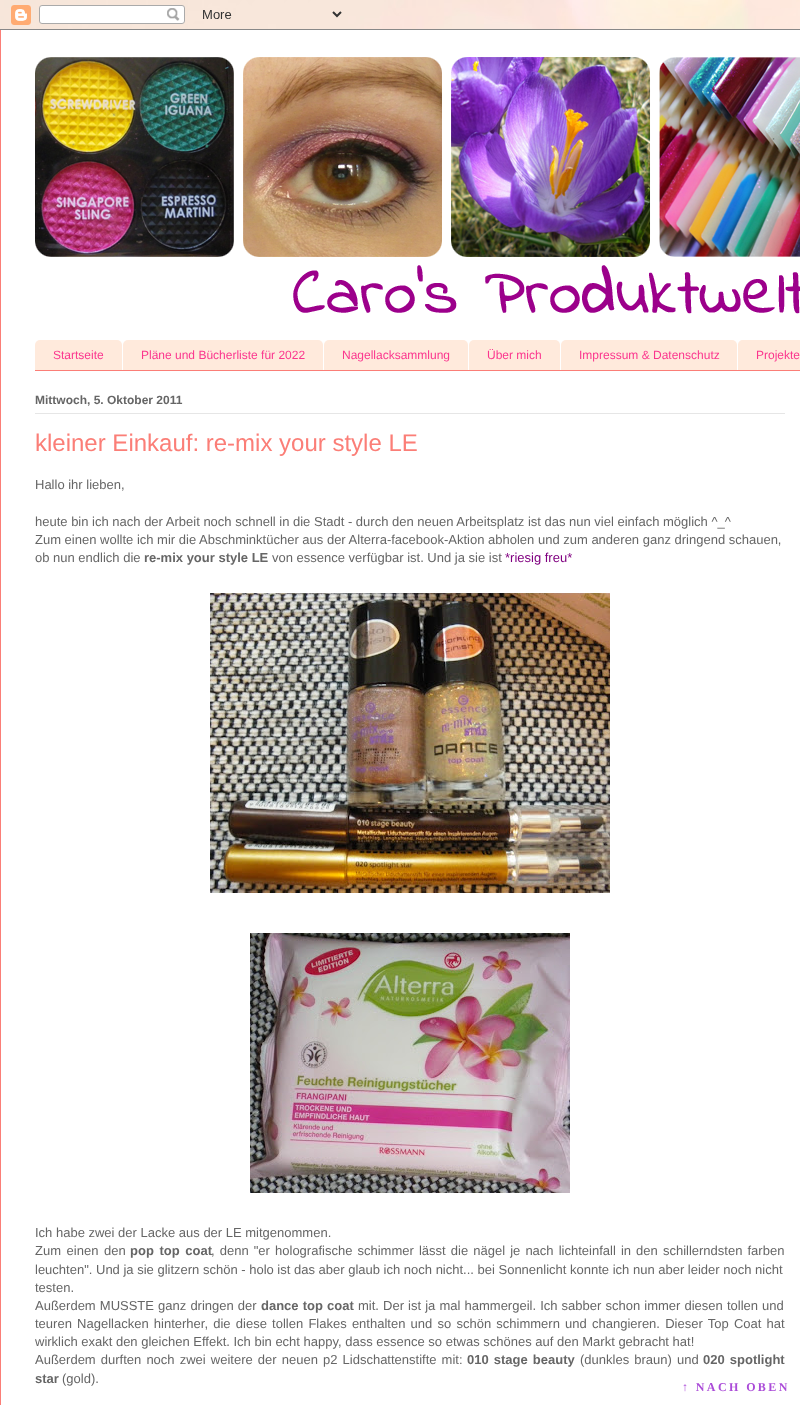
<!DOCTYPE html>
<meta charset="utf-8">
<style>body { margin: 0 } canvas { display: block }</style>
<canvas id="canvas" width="800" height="1405"></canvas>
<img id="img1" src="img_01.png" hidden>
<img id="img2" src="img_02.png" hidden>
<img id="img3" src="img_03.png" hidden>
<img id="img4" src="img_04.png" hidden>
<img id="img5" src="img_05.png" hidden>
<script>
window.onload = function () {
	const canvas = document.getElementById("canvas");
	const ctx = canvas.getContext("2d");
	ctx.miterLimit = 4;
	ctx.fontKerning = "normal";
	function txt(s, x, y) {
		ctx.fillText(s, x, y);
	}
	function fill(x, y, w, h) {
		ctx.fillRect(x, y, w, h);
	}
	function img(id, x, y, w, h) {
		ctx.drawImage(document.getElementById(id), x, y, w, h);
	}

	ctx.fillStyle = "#FFFFFF";
	fill(0, 0, 800, 1405);
	img("img1", 0, 0, 800, 29);
	img("img2", 0, 0, 800, 30);
	ctx.fillStyle = "#FB7E77";
	fill(0, 30, 1, 1375);
	img("img3", 35, 57, 765, 257);
	fill(35, 370, 765, 1);
	ctx.fillStyle = "#FFEADC";
	ctx.beginPath();
	ctx.roundRect(35, 340, 87, 30, [5, 5, 0, 0]);
	ctx.fill();
	ctx.beginPath();
	ctx.roundRect(123, 340, 200, 30, [5, 5, 0, 0]);
	ctx.fill();
	ctx.beginPath();
	ctx.roundRect(324, 340, 144, 30, [5, 5, 0, 0]);
	ctx.fill();
	ctx.beginPath();
	ctx.roundRect(469, 340, 91, 30, [5, 5, 0, 0]);
	ctx.fill();
	ctx.beginPath();
	ctx.roundRect(561, 340, 176, 30, [5, 5, 0, 0]);
	ctx.fill();
	ctx.beginPath();
	ctx.moveTo(743, 340);
	ctx.lineTo(800, 340);
	ctx.bezierCurveTo(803, 340, 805, 342, 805, 345);
	ctx.lineTo(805, 370);
	ctx.lineTo(738, 370);
	ctx.lineTo(738, 345);
	ctx.bezierCurveTo(738, 342, 740, 340, 743, 340);
	ctx.closePath();
	ctx.fill();
	ctx.fillStyle = "#E6E6E6";
	fill(35, 413, 750, 1);
	img("img4", 210, 593, 400, 300);
	img("img5", 250, 933, 320, 260);
	ctx.font = "12px Liberation Sans";
	ctx.fillStyle = "#FB368E";
	txt("Startseite", 53, 359);
	txt("Pläne und Bücherliste für 2022", 141, 359);
	txt("Nagellacksammlung", 342, 359);
	txt("Über mich", 487, 359);
	txt("Impressum & Datenschutz", 579, 359);
	txt("Projekte", 756, 359);
	ctx.font = "bold 12px Liberation Sans";
	ctx.fillStyle = "#666666";
	txt("Mittwoch, 5. Oktober 2011", 35, 404);
	ctx.font = "24px Liberation Sans";
	ctx.fillStyle = "#FB7E77";
	txt("kleiner Einkauf: re-mix your style LE", 35, 451);
	ctx.font = "13px Liberation Sans";
	ctx.fillStyle = "#666666";
	txt("Hallo ihr lieben,", 35, 489);
	txt("heute bin ich nach der Arbeit noch schnell in die Stadt - durch den neuen Arbeitsplatz ist das nun viel einfach möglich ^_^", 35, 526);
	txt("Zum einen wollte ich mir die Abschminktücher aus der Alterra-facebook-Aktion abholen und zum anderen ganz dringend schauen,", 35, 544);
	txt("ob nun endlich die", 35, 562);
	ctx.font = "bold 13px Liberation Sans";
	txt("re-mix your style LE", 144, 562);
	ctx.font = "13px Liberation Sans";
	txt("von essence verfügbar ist. Und ja sie ist", 272, 562);
	ctx.fillStyle = "#800080";
	txt("*riesig freu*", 505, 562);
	ctx.fillStyle = "#666666";
	txt("Ich habe zwei der Lacke aus der LE mitgenommen.", 35, 1237);
	ctx.wordSpacing = "2px";
	txt("Zum einen den", 35, 1255);
	ctx.font = "bold 13px Liberation Sans";
	txt("pop top coat", 130, 1255);
	ctx.wordSpacing = "1.5px";
	ctx.font = "13px Liberation Sans";
	txt(", denn \"er holografische schimmer lässt die nägel je nach lichteinfall in den schillerndsten farben", 211, 1255);
	ctx.wordSpacing = "0px";
	txt("leuchten\". Und ja sie glitzern schön - holo ist das aber glaub ich noch nicht... bei Sonnenlicht konnte ich nun aber leider noch nicht", 35, 1274);
	txt("testen.", 35, 1292);
	ctx.wordSpacing = "0.5px";
	txt("Außerdem MUSSTE ganz dringen der", 35, 1310);
	ctx.font = "bold 13px Liberation Sans";
	txt("dance top coat", 261, 1310);
	ctx.font = "13px Liberation Sans";
	txt("mit. Der ist ja mal hammergeil. Ich sabber schon immer diesen tollen und", 358, 1310);
	ctx.wordSpacing = "1.6px";
	txt("teuren Nagellacken hinterher, die diese tollen Flakes enthalten und so schön schimmern und changieren. Dieser Top Coat hat", 35, 1328);
	ctx.wordSpacing = "0px";
	txt("wirklich exakt den gleichen Effekt. Ich bin echt happy, dass essence so etwas schönes auf den Markt gebracht hat!", 35, 1346);
	ctx.wordSpacing = "1.5px";
	txt("Außerdem durften noch zwei weitere der neuen p2 Lidschattenstifte mit:", 35, 1364);
	ctx.font = "bold 13px Liberation Sans";
	txt("010 stage beauty", 467, 1364);
	ctx.font = "13px Liberation Sans";
	txt("(dunkles braun)", 580, 1364);
	ctx.wordSpacing = "0px";
	txt("und", 677, 1364);
	ctx.wordSpacing = "1.5px";
	ctx.font = "bold 13px Liberation Sans";
	txt("020 spotlight", 703, 1364);
	ctx.wordSpacing = "0px";
	txt("star", 35, 1383);
	ctx.font = "13px Liberation Sans";
	txt("(gold).", 62, 1383);
	ctx.letterSpacing = "2.4px";
	ctx.font = "bold 12px Liberation Serif";
	ctx.fillStyle = "#AB4CD8";
	txt("↑ NACH OBEN", 682, 1391);
};
</script>
